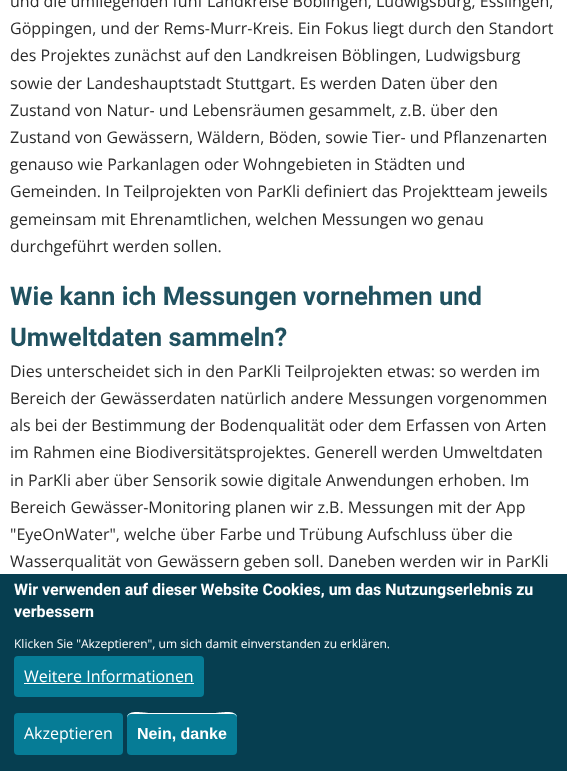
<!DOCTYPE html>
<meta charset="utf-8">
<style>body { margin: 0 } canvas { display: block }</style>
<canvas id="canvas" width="567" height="771"></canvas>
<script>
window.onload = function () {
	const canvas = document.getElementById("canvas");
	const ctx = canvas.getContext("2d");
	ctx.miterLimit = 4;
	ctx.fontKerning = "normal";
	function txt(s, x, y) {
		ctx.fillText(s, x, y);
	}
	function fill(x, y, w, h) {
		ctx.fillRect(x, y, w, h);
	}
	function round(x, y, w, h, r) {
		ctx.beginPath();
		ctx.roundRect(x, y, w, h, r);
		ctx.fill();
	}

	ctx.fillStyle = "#FFFFFF";
	fill(0, 0, 567, 771);
	ctx.fillStyle = "#063E50";
	fill(0, 574, 567, 197);
	ctx.fillStyle = "#067C96";
	round(14, 656, 190, 41, 4);
	ctx.fillStyle = "#FFFFFF";
	fill(24, 683, 170, 1);
	ctx.fillStyle = "#067C96";
	round(14, 713, 109, 42, 4);
	round(127, 713, 110, 42, 4);
	ctx.fillStyle = "#FFFFFF";
	ctx.beginPath();
	ctx.moveTo(131, 714);
	ctx.lineTo(233, 714);
	ctx.bezierCurveTo(235, 714, 237, 716, 237, 718);
	ctx.bezierCurveTo(237, 709, 220, 713, 216, 713);
	ctx.lineTo(148, 713);
	ctx.bezierCurveTo(144, 713, 127, 709, 127, 718);
	ctx.bezierCurveTo(127, 716, 129, 714, 131, 714);
	ctx.closePath();
	ctx.fill();
	ctx.font = "16px Open Sans";
	ctx.fillStyle = "#2A2A2A";
	txt("und die umliegenden fünf Landkreise Böblingen, Ludwigsburg, Esslingen,", 10, 7);
	txt("Göppingen, und der Rems-Murr-Kreis. Ein Fokus liegt durch den Standort", 10, 34);
	txt("des Projektes zunächst auf den Landkreisen Böblingen, Ludwigsburg", 10, 61);
	txt("sowie der Landeshauptstadt Stuttgart. Es werden Daten über den", 10, 89);
	txt("Zustand von Natur- und Lebensräumen gesammelt, z.B. über den", 10, 116);
	txt("Zustand von Gewässern, Wäldern, Böden, sowie Tier- und Pflanzenarten", 10, 143);
	txt("genauso wie Parkanlagen oder Wohngebieten in Städten und", 10, 170);
	txt("Gemeinden. In Teilprojekten von ParKli definiert das Projektteam jeweils", 10, 197);
	txt("gemeinsam mit Ehrenamtlichen, welchen Messungen wo genau", 10, 225);
	txt("durchgeführt werden sollen.", 10, 252);
	ctx.font = "bold 25.6px Roboto";
	ctx.fillStyle = "#215260";
	txt("Wie kann ich Messungen vornehmen und", 10, 305);
	txt("Umweltdaten sammeln?", 10, 346);
	ctx.font = "16px Open Sans";
	ctx.fillStyle = "#2A2A2A";
	txt("Dies unterscheidet sich in den ParKli Teilprojekten etwas: so werden im", 10, 377);
	txt("Bereich der Gewässerdaten natürlich andere Messungen vorgenommen", 10, 404);
	txt("als bei der Bestimmung der Bodenqualität oder dem Erfassen von Arten", 10, 431);
	txt("im Rahmen eine Biodiversitätsprojektes. Generell werden Umweltdaten", 10, 458);
	txt("in ParKli aber über Sensorik sowie digitale Anwendungen erhoben. Im", 10, 486);
	txt("Bereich Gewässer-Monitoring planen wir z.B. Messungen mit der App", 10, 513);
	txt("\"EyeOnWater\", welche über Farbe und Trübung Aufschluss über die", 10, 540);
	txt("Wasserqualität von Gewässern geben soll. Daneben werden wir in ParKli", 10, 567);
	ctx.font = "bold 16px Roboto";
	ctx.fillStyle = "#FFFFFF";
	txt("Wir verwenden auf dieser Website Cookies, um das Nutzungserlebnis zu", 14, 595);
	txt("verbessern", 14, 617);
	ctx.font = "12px Open Sans";
	txt("Klicken Sie \"Akzeptieren\", um sich damit einverstanden zu erklären.", 14, 648);
	ctx.font = "16px Open Sans";
	txt("Weitere Informationen", 24, 682);
	txt("Akzeptieren", 24, 739);
	ctx.font = "bold 16px Liberation Sans";
	txt("Nein, danke", 137, 739);
};
</script>
